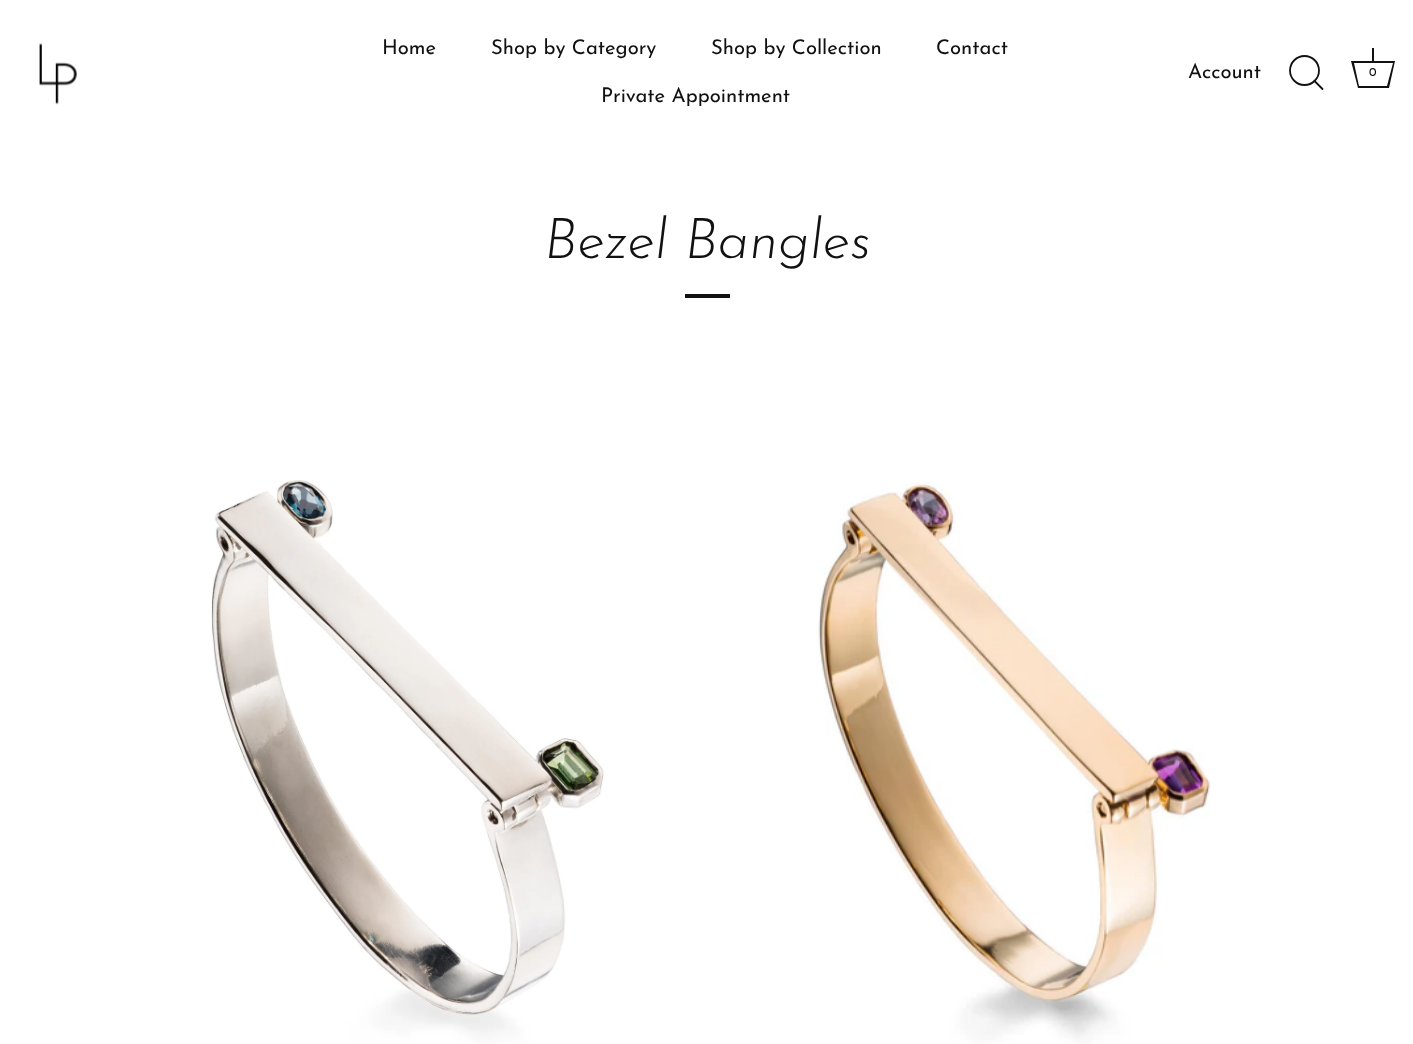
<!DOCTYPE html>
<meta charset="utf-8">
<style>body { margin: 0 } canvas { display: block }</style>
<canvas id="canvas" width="1413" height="1044"></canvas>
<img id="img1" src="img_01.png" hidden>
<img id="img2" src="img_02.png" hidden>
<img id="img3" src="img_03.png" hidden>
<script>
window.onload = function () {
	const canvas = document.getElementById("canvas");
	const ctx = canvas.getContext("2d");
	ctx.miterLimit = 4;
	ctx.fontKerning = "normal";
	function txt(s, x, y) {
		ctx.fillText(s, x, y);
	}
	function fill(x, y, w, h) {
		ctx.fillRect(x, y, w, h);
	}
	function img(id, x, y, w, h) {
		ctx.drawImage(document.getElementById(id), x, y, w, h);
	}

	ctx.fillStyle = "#FFFFFF";
	fill(0, 0, 1413, 1044);
	img("img1", 39, 43, 38, 62);
	ctx.beginPath();
	ctx.arc(1304.5, 70.5, 14.5, 0, Math.PI * 2);
	ctx.strokeStyle = "#111111";
	ctx.lineWidth = 1.8;
	ctx.stroke();
	ctx.beginPath();
	ctx.moveTo(1322.5, 89);
	ctx.lineTo(1314.5, 81);
	ctx.lineCap = "round";
	ctx.lineJoin = "round";
	ctx.stroke();
	ctx.fillStyle = "#111111";
	fill(1372, 48, 2, 13);
	ctx.beginPath();
	ctx.moveTo(1393, 63);
	ctx.lineTo(1387, 86);
	ctx.lineTo(1359, 86);
	ctx.lineTo(1354, 63);
	ctx.lineTo(1393, 63);
	ctx.moveTo(1395, 61);
	ctx.lineTo(1351, 61);
	ctx.lineTo(1358, 88);
	ctx.lineTo(1389, 88);
	ctx.closePath();
	ctx.fill();
	fill(685, 294, 45, 4);
	img("img2", 211, 480, 393, 564);
	img("img3", 818, 481, 393, 563);
	ctx.font = "20.25px Josefin Sans";
	txt("Home", 382, 54);
	txt("Shop by Category", 491, 54);
	txt("Shop by Collection", 711, 54);
	txt("Contact", 936, 54);
	txt("Private Appointment", 601, 102);
	txt("Account", 1188, 78);
	ctx.font = "12px Josefin Sans";
	txt("0", 1369, 76);
	ctx.font = "italic 300 56.25px Josefin Sans";
	txt("Bezel Bangles", 544, 258);
};
</script>
